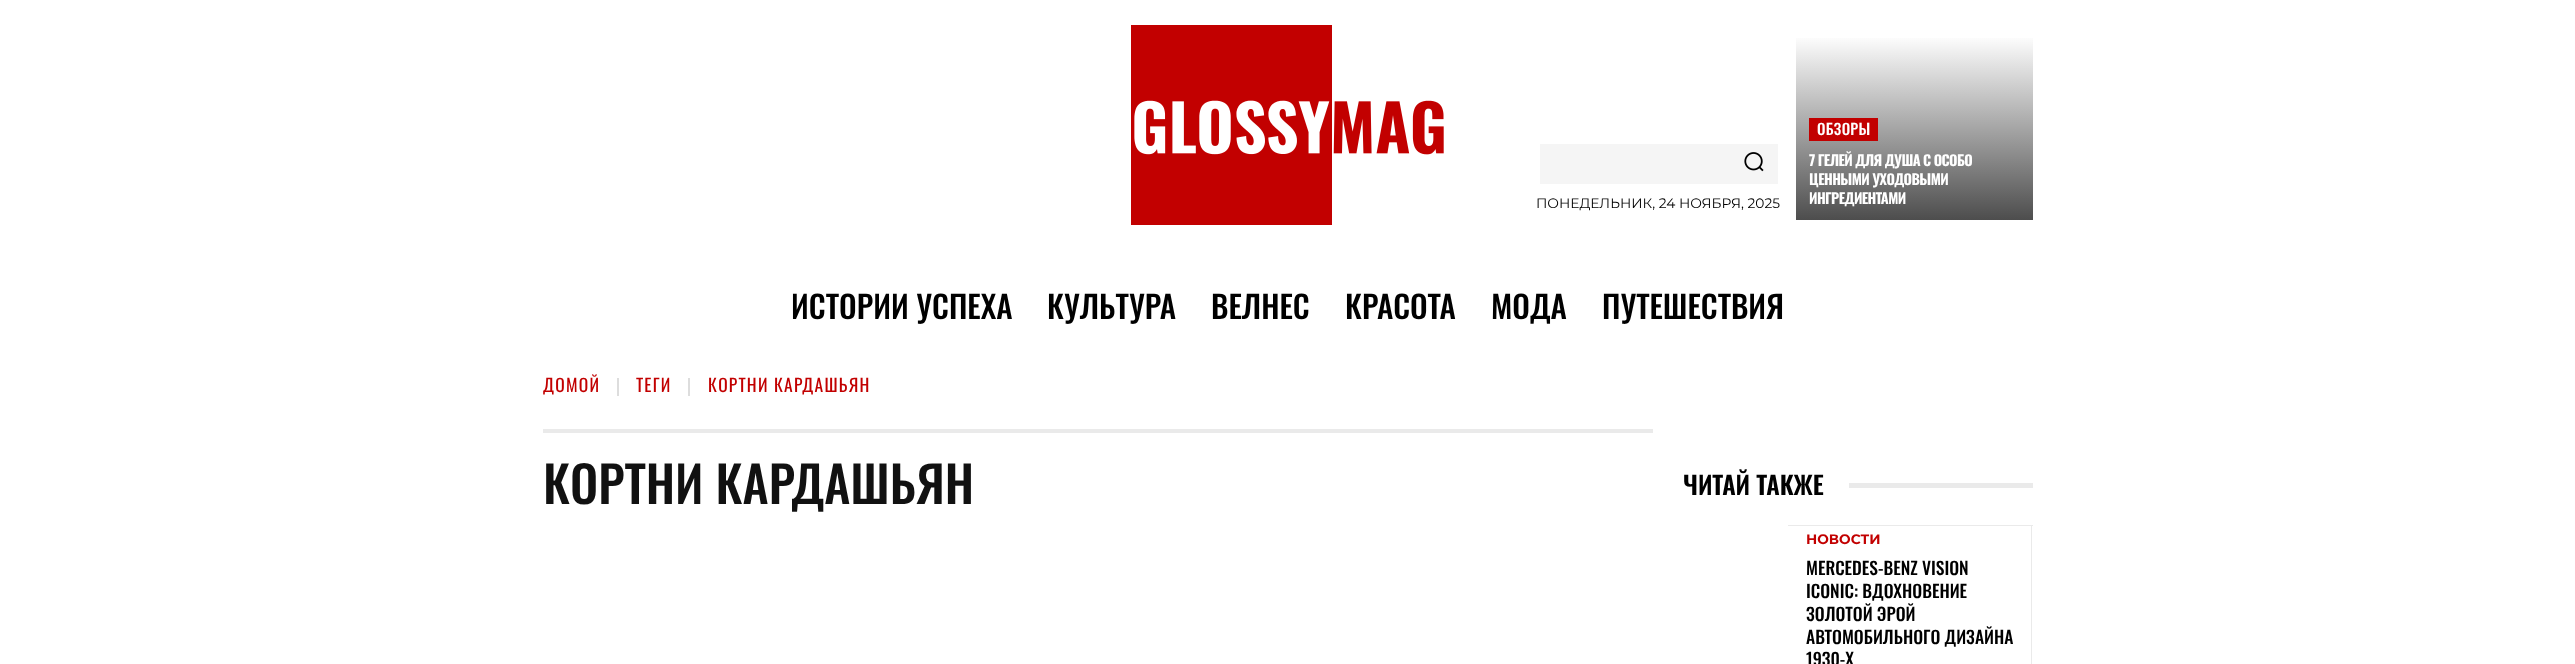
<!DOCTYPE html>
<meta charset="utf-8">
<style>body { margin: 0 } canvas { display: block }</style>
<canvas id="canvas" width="2575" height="664"></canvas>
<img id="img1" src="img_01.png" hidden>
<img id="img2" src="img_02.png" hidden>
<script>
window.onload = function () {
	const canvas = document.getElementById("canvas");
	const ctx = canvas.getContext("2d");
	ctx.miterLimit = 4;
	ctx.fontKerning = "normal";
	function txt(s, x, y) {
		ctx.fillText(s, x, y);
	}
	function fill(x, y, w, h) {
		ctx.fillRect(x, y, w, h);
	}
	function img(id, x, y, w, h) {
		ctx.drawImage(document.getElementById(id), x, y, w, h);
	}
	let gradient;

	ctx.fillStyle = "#FFFFFF";
	fill(0, 0, 2575, 664);
	img("img1", 1131, 25, 313, 200);
	ctx.fillStyle = "#F5F5F5";
	fill(1540, 144, 238, 40);
	img("img2", 1744, 152, 20, 20);
	gradient = ctx.createLinearGradient(1914, 220, 1914, 35);
	gradient.addColorStop(0, "#4D4D4D");
	gradient.addColorStop(1, "#FFFFFF");
	ctx.fillStyle = gradient;
	fill(1796, 38, 237, 182);
	ctx.fillStyle = "#C20000";
	fill(1809, 118, 69, 23);
	ctx.fillStyle = "#DDDDDD";
	fill(617, 378, 2, 18);
	fill(688, 378, 2, 18);
	ctx.fillStyle = "#EAEAEA";
	fill(543, 429, 1110, 4);
	fill(1849, 483, 184, 5);
	fill(1788, 525, 245, 1);
	fill(2031, 525, 1, 139);
	ctx.font = "13.75px Montserrat";
	ctx.fillStyle = "#000000";
	txt("ПОНЕДЕЛЬНИК, 24 НОЯБРЯ, 2025", 1536, 208);
	ctx.letterSpacing = "0.25px";
	ctx.font = "500 15px Oswald";
	ctx.fillStyle = "#FFFFFF";
	txt("ОБЗОРЫ", 1817, 135);
	ctx.letterSpacing = "-0.6px";
	ctx.font = "bold 14.4px Oswald";
	txt("7 ГЕЛЕЙ ДЛЯ ДУША С ОСОБО", 1809, 166);
	txt("ЦЕННЫМИ УХОДОВЫМИ", 1809, 185);
	txt("ИНГРЕДИЕНТАМИ", 1809, 204);
	ctx.letterSpacing = "0px";
	ctx.font = "500 31.25px Oswald";
	ctx.fillStyle = "#000000";
	txt("ИСТОРИИ УСПЕХА", 791, 319);
	txt("КУЛЬТУРА", 1047, 319);
	txt("ВЕЛНЕС", 1211, 319);
	txt("КРАСОТА", 1345, 319);
	txt("МОДА", 1491, 319);
	txt("ПУТЕШЕСТВИЯ", 1602, 319);
	ctx.letterSpacing = "1.25px";
	ctx.font = "17.5px Oswald";
	ctx.fillStyle = "#C20000";
	txt("ДОМОЙ", 543, 392);
	txt("ТЕГИ", 636, 392);
	txt("КОРТНИ КАРДАШЬЯН", 708, 392);
	ctx.letterSpacing = "0px";
	ctx.font = "500 50px Oswald";
	ctx.fillStyle = "#111111";
	txt("КОРТНИ КАРДАШЬЯН", 543, 504);
	ctx.font = "600 25px Oswald";
	ctx.fillStyle = "#000000";
	txt("ЧИТАЙ ТАКЖЕ", 1683, 495);
	ctx.font = "bold 13.75px Montserrat";
	ctx.fillStyle = "#C20000";
	txt("НОВОСТИ", 1806, 544);
	ctx.font = "500 17.5px Oswald";
	ctx.fillStyle = "#000000";
	txt("MERCEDES-BENZ VISION", 1806, 575);
	txt("ICONIC: ВДОХНОВЕНИЕ", 1806, 598);
	txt("ЗОЛОТОЙ ЭРОЙ", 1806, 621);
	txt("АВТОМОБИЛЬНОГО ДИЗАЙНА", 1806, 644);
	txt("1930-Х", 1806, 666);
};
</script>
